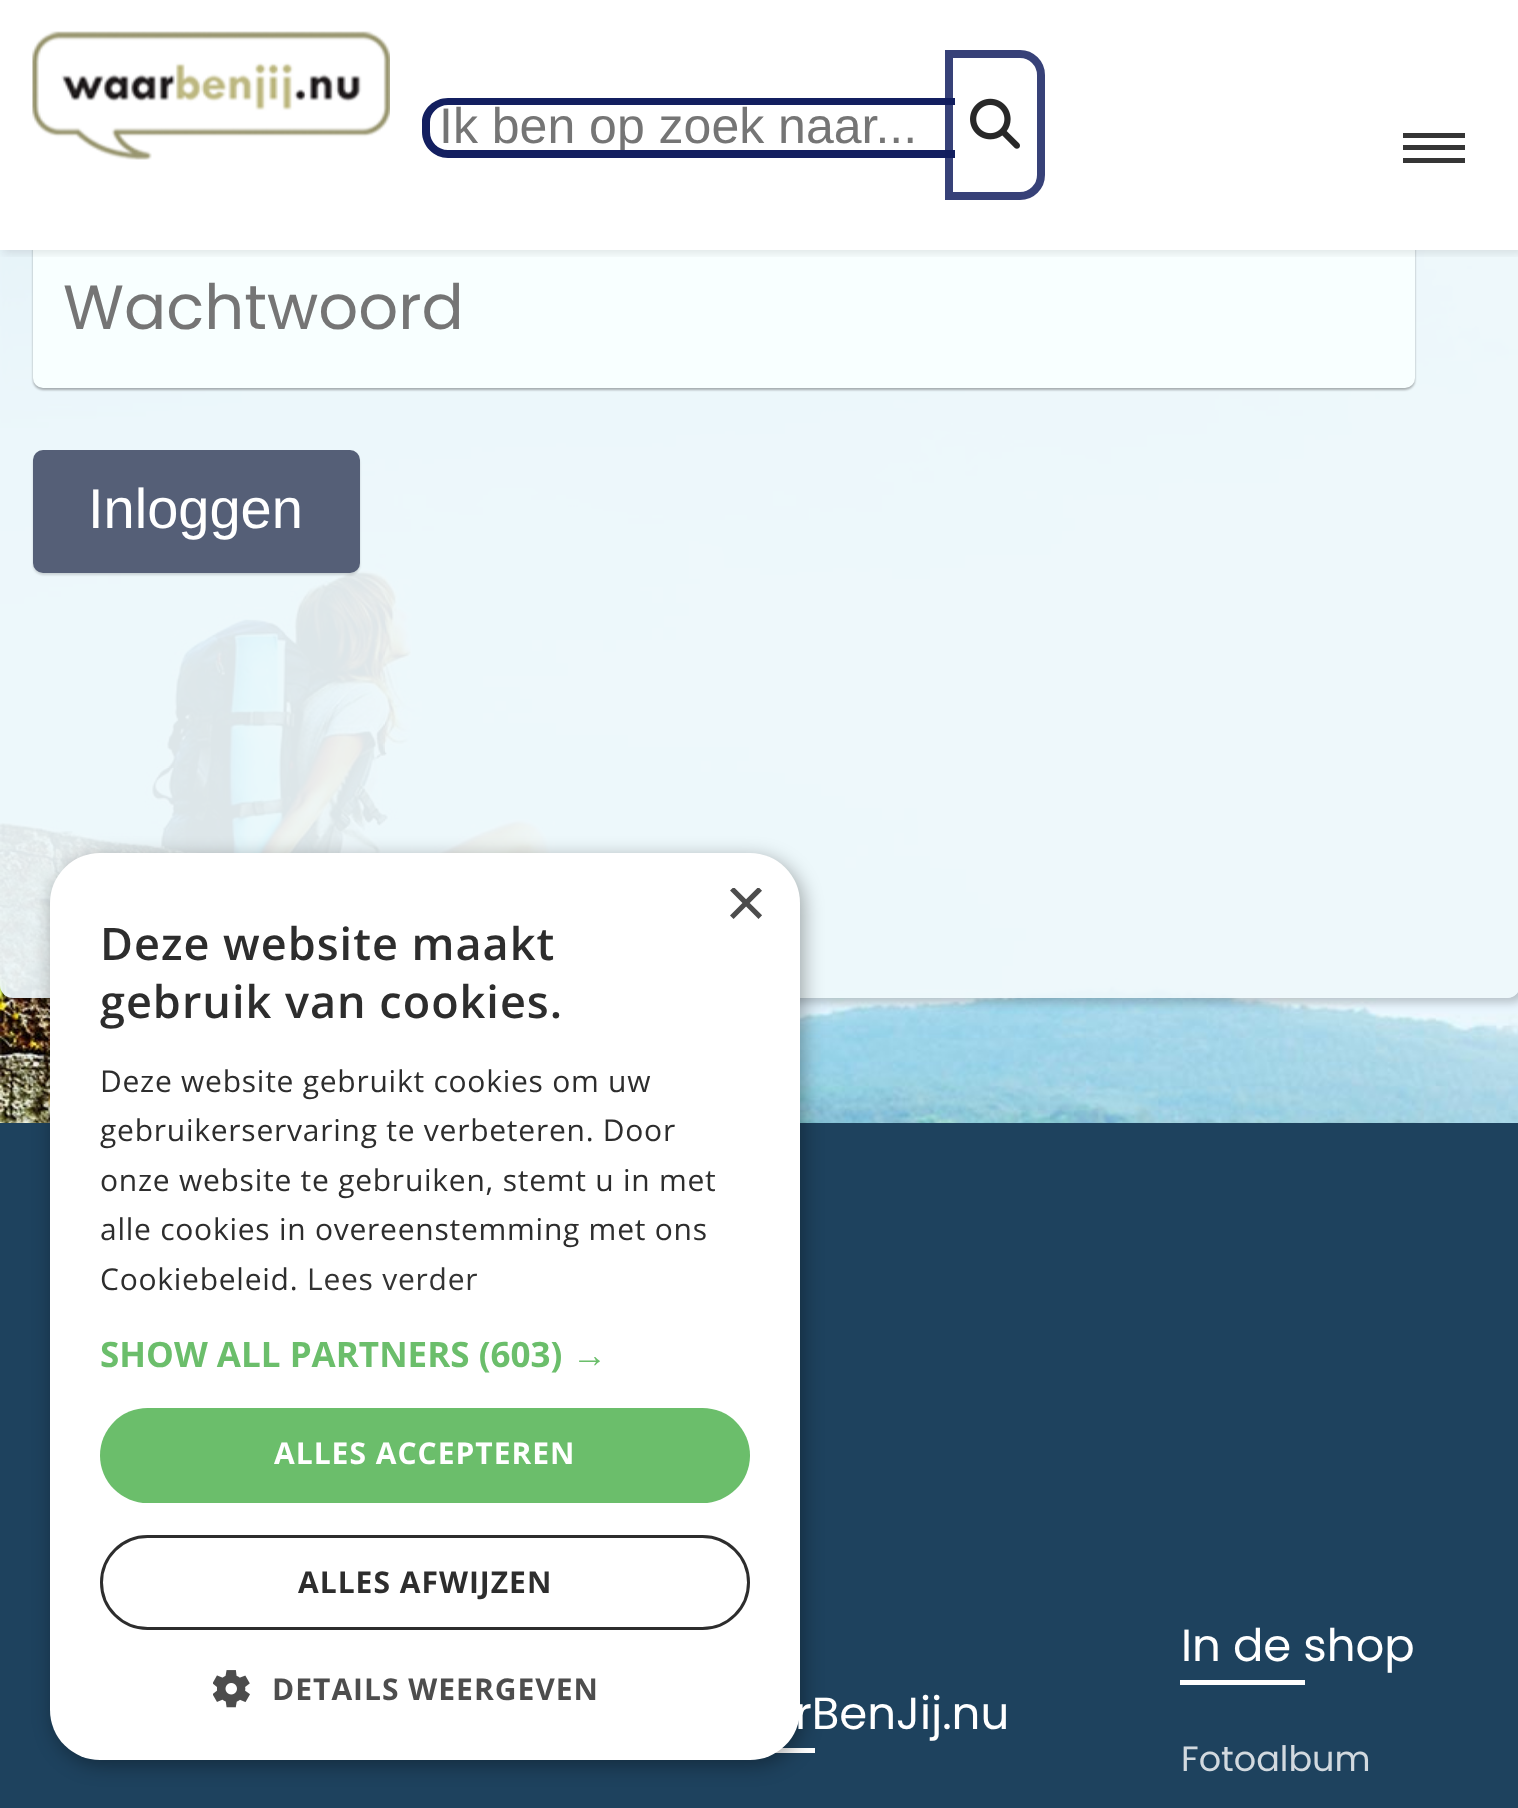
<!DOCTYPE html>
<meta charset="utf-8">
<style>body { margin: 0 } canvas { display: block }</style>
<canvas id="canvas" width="1518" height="1808"></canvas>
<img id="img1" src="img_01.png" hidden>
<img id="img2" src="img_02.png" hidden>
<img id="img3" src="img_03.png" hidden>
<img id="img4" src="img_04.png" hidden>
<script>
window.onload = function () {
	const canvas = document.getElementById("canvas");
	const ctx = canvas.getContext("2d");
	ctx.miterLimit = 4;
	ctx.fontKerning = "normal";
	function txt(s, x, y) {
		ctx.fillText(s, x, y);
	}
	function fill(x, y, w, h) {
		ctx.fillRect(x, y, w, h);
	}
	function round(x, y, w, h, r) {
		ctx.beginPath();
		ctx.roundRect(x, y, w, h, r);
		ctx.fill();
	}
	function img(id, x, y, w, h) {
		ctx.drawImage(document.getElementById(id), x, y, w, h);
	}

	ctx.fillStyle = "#FFFFFF";
	fill(0, 0, 1518, 1808);
	img("img1", 0, 0, 1518, 1123);
	ctx.save();
	ctx.beginPath();
	ctx.moveTo(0, 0);
	ctx.lineTo(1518, 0);
	ctx.lineTo(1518, 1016);
	ctx.lineTo(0, 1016);
	ctx.closePath();
	ctx.moveTo(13, -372);
	ctx.lineTo(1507, -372);
	ctx.bezierCurveTo(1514, -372, 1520, -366, 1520, -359);
	ctx.lineTo(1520, 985);
	ctx.bezierCurveTo(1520, 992, 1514, 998, 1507, 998);
	ctx.lineTo(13, 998);
	ctx.bezierCurveTo(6, 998, 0, 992, 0, 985);
	ctx.lineTo(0, -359);
	ctx.bezierCurveTo(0, -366, 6, -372, 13, -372);
	ctx.closePath();
	ctx.clip("evenodd");
	ctx.fillStyle = "rgba(0, 0, 0, 0.2)";
	ctx.filter = "blur(4px)";
	ctx.beginPath();
	ctx.roundRect(5, -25, 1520, 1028, 13);
	ctx.fill();
	ctx.filter = "none";
	ctx.restore();
	ctx.fillStyle = "rgba(238, 248, 251, 0.93)";
	round(0, -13, 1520, 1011, 13);
	ctx.fillStyle = "rgba(0, 0, 0, 0.3)";
	ctx.filter = "blur(1px)";
	ctx.beginPath();
	ctx.roundRect(33, 233, 1382, 157, 10);
	ctx.fill();
	ctx.filter = "none";
	ctx.fillStyle = "#F8FFFF";
	round(33, 230, 1382, 158, 10);
	ctx.save();
	ctx.beginPath();
	ctx.rect(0, 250, 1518, 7);
	ctx.clip();
	ctx.fillStyle = "rgba(0, 0, 0, 0.1)";
	ctx.filter = "blur(5px)";
	ctx.beginPath();
	ctx.rect(3, 3, 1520, 250);
	ctx.fill();
	ctx.filter = "none";
	ctx.restore();
	ctx.fillStyle = "rgba(255, 255, 255, 0.99)";
	fill(0, 0, 1518, 250);
	img("img2", 32, 31, 358, 129);
	ctx.fillStyle = "#131F60";
	ctx.beginPath();
	ctx.moveTo(448, 98);
	ctx.lineTo(955, 98);
	ctx.lineTo(955, 158);
	ctx.lineTo(448, 158);
	ctx.bezierCurveTo(434, 158, 422, 146, 422, 132);
	ctx.lineTo(422, 122);
	ctx.bezierCurveTo(422, 109, 434, 98, 448, 98);
	ctx.closePath();
	ctx.moveTo(448, 105);
	ctx.lineTo(955, 105);
	ctx.lineTo(955, 150);
	ctx.lineTo(448, 150);
	ctx.bezierCurveTo(438, 150, 430, 142, 430, 132);
	ctx.lineTo(430, 122);
	ctx.bezierCurveTo(430, 113, 438, 105, 448, 105);
	ctx.closePath();
	ctx.fill("evenodd");
	ctx.beginPath();
	ctx.roundRect(949, 54, 92, 142, [0, 21, 21, 0]);
	ctx.strokeStyle = "rgba(17, 29, 94, 0.84)";
	ctx.lineWidth = 8;
	ctx.stroke();
	img("img3", 970, 98, 50, 51);
	ctx.fillStyle = "#353535";
	fill(1403, 145, 62, 5);
	fill(1403, 133, 62, 5);
	fill(1403, 158, 62, 5);
	ctx.fillStyle = "rgba(0, 0, 0, 0.15)";
	ctx.filter = "blur(1px)";
	ctx.beginPath();
	ctx.roundRect(33, 453, 327, 122, 10);
	ctx.fill();
	ctx.filter = "none";
	ctx.fillStyle = "#555F77";
	round(33, 450, 327, 123, 10);
	ctx.fillStyle = "#1E425E";
	fill(0, 1123, 1518, 685);
	ctx.fillStyle = "#FFFFFF";
	fill(775, 1748, 40, 5);
	ctx.fillStyle = "rgba(0, 0, 0, 0.35)";
	ctx.filter = "blur(10px)";
	ctx.beginPath();
	ctx.roundRect(53, 858, 750, 907, 50);
	ctx.fill();
	ctx.filter = "none";
	ctx.fillStyle = "#FFFFFF";
	round(50, 853, 750, 907, 50);
	ctx.fillStyle = "#6BBE6B";
	round(100, 1408, 650, 95, 47.5);
	ctx.beginPath();
	ctx.roundRect(101.5, 1536.5, 647, 92, 46);
	ctx.strokeStyle = "#2D2D2D";
	ctx.lineWidth = 3;
	ctx.stroke();
	img("img4", 213, 1670, 37, 38);
	ctx.fillStyle = "#FFFFFF";
	fill(1180, 1680, 125, 5);
	ctx.save();
	ctx.beginPath();
	ctx.roundRect(430, 105, 525, 45, [18, 0, 0, 18]);
	ctx.clip();
	ctx.font = "50px Liberation Sans";
	ctx.fillStyle = "#757575";
	txt("Ik ben op zoek naar...", 439, 143);
	ctx.restore();
	ctx.font = "62.5px Poppins";
	ctx.fillStyle = "#757575";
	txt("Wachtwoord", 63, 329);
	ctx.font = "56px Liberation Sans";
	ctx.fillStyle = "#FFFFFF";
	txt("Inloggen", 88, 528);
	ctx.save();
	ctx.beginPath();
	ctx.rect(725, 888, 38, 37);
	ctx.clip();
	ctx.font = "72px Liberation Sans";
	ctx.fillStyle = "#4D4D4D";
	txt("×", 725, 927);
	ctx.restore();
	ctx.letterSpacing = "1px";
	ctx.font = "600 45px Open Sans";
	ctx.fillStyle = "#2D2D2D";
	txt("Deze website maakt", 100, 960);
	txt("gebruik van cookies.", 100, 1018);
	ctx.letterSpacing = "0.75px";
	ctx.font = "30px Open Sans";
	txt("Deze website gebruikt cookies om uw", 100, 1092);
	txt("gebruikerservaring te verbeteren. Door", 100, 1141);
	txt("onze website te gebruiken, stemt u in met", 100, 1191);
	txt("alle cookies in overeenstemming met ons", 100, 1240);
	txt("Cookiebeleid.", 100, 1290);
	ctx.fillStyle = "#333333";
	txt("Lees verder", 307, 1290);
	ctx.letterSpacing = "0px";
	ctx.font = "bold 35px Open Sans";
	ctx.fillStyle = "#6BBE6B";
	txt("SHOW ALL PARTNERS (603)", 100, 1367);
	ctx.font = "bold 35px Liberation Sans";
	txt("→", 572, 1367);
	ctx.letterSpacing = "1px";
	ctx.font = "bold 30px Open Sans";
	ctx.fillStyle = "#FFFFFF";
	txt("ALLES ACCEPTEREN", 274, 1464);
	ctx.fillStyle = "#2D2D2D";
	txt("ALLES AFWIJZEN", 298, 1593);
	ctx.fillStyle = "#4D4D4D";
	txt("DETAILS WEERGEVEN", 272, 1700);
	ctx.letterSpacing = "0px";
	ctx.font = "45px Poppins";
	ctx.fillStyle = "#FFFFFF";
	txt("rBenJij.nu", 795, 1729);
	txt("In de shop", 1181, 1661);
	ctx.font = "35px Poppins";
	ctx.fillStyle = "#D2D9DF";
	txt("Fotoalbum", 1181, 1771);
};
</script>
